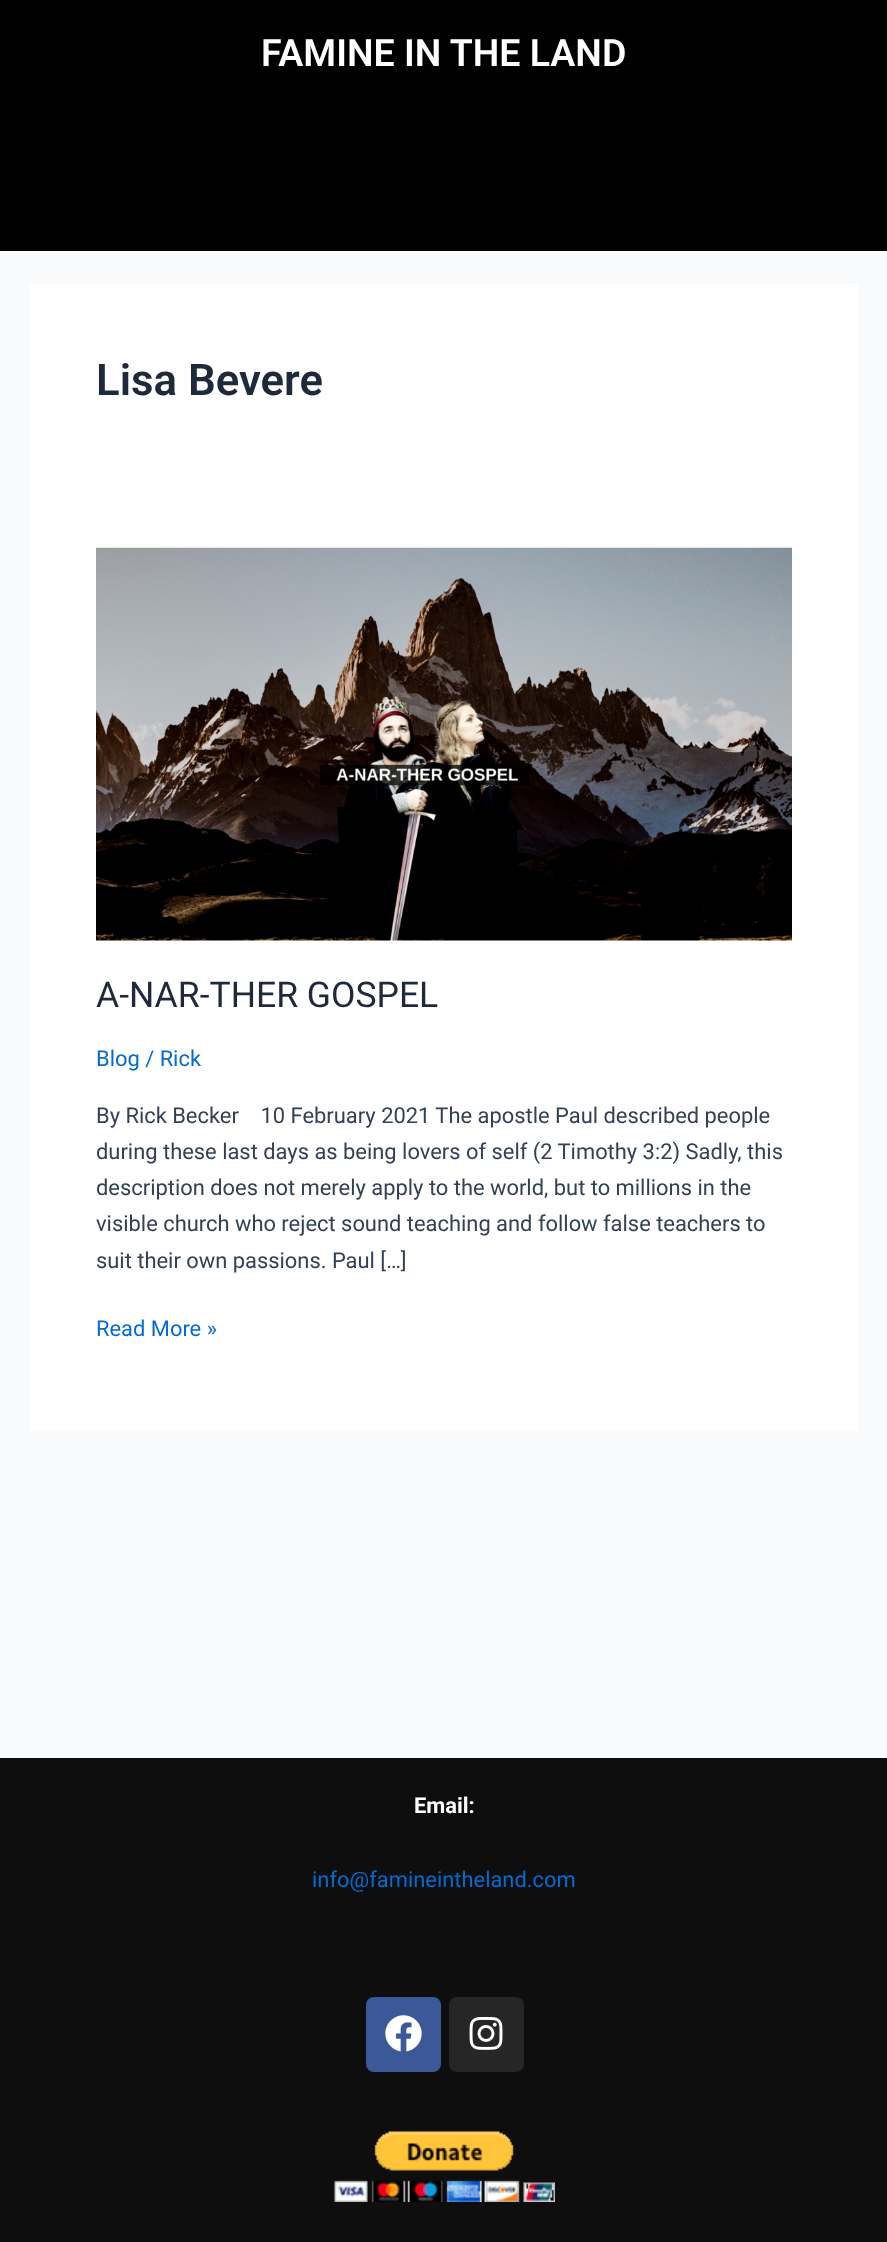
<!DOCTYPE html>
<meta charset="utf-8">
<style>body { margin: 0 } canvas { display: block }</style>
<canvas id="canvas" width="887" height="2242"></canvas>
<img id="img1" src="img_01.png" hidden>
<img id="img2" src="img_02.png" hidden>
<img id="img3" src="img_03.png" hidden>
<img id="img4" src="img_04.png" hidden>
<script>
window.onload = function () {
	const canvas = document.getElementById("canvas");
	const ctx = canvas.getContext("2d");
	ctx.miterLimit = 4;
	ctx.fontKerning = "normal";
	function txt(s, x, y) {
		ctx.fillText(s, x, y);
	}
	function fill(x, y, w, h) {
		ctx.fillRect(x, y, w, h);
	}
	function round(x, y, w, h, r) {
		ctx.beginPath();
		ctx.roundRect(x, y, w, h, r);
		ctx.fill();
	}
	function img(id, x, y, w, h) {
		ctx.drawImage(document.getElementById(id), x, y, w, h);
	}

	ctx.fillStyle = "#F9FAFB";
	fill(0, 0, 887, 2242);
	ctx.fillStyle = "#000000";
	fill(0, 0, 887, 251);
	ctx.fillStyle = "#FFFFFF";
	fill(30, 284, 828, 1146);
	img("img1", 96, 547, 696, 394);
	ctx.fillStyle = "#0E0E0E";
	fill(0, 1758, 887, 484);
	ctx.fillStyle = "#3B5998";
	round(366, 1997, 75, 75, 8);
	img("img2", 385, 2015, 37, 37);
	ctx.fillStyle = "#262626";
	round(449, 1997, 75, 75, 8);
	img("img3", 469, 2016, 34, 34);
	img("img4", 334, 2131, 221, 71);
	ctx.font = "600 37.5px Roboto";
	ctx.fillStyle = "#FFFFFF";
	txt("FAMINE IN THE LAND", 261, 66);
	ctx.font = "600 43.75px Roboto";
	ctx.fillStyle = "#1E293B";
	txt("Lisa Bevere", 96, 395);
	ctx.font = "35.5px Roboto";
	txt("A-NAR-THER GOSPEL", 96, 1007);
	ctx.font = "21.9px Roboto";
	ctx.fillStyle = "#046BD2";
	txt("Blog / Rick", 96, 1066);
	ctx.fillStyle = "#334155";
	txt("By Rick Becker    10 February 2021 The apostle Paul described people", 96, 1123);
	txt("during these last days as being lovers of self (2 Timothy 3:2) Sadly, this", 96, 1159);
	txt("description does not merely apply to the world, but to millions in the", 96, 1195);
	txt("visible church who reject sound teaching and follow false teachers to", 96, 1231);
	txt("suit their own passions. Paul […]", 96, 1268);
	ctx.fillStyle = "#046BD2";
	txt("Read More »", 96, 1336);
	ctx.font = "bold 21.9px Roboto";
	ctx.fillStyle = "#FFFFFF";
	txt("Email:", 414, 1813);
	ctx.font = "21.9px Roboto";
	ctx.fillStyle = "#046BD2";
	txt("info@famineintheland.com", 312, 1887);
};
</script>
